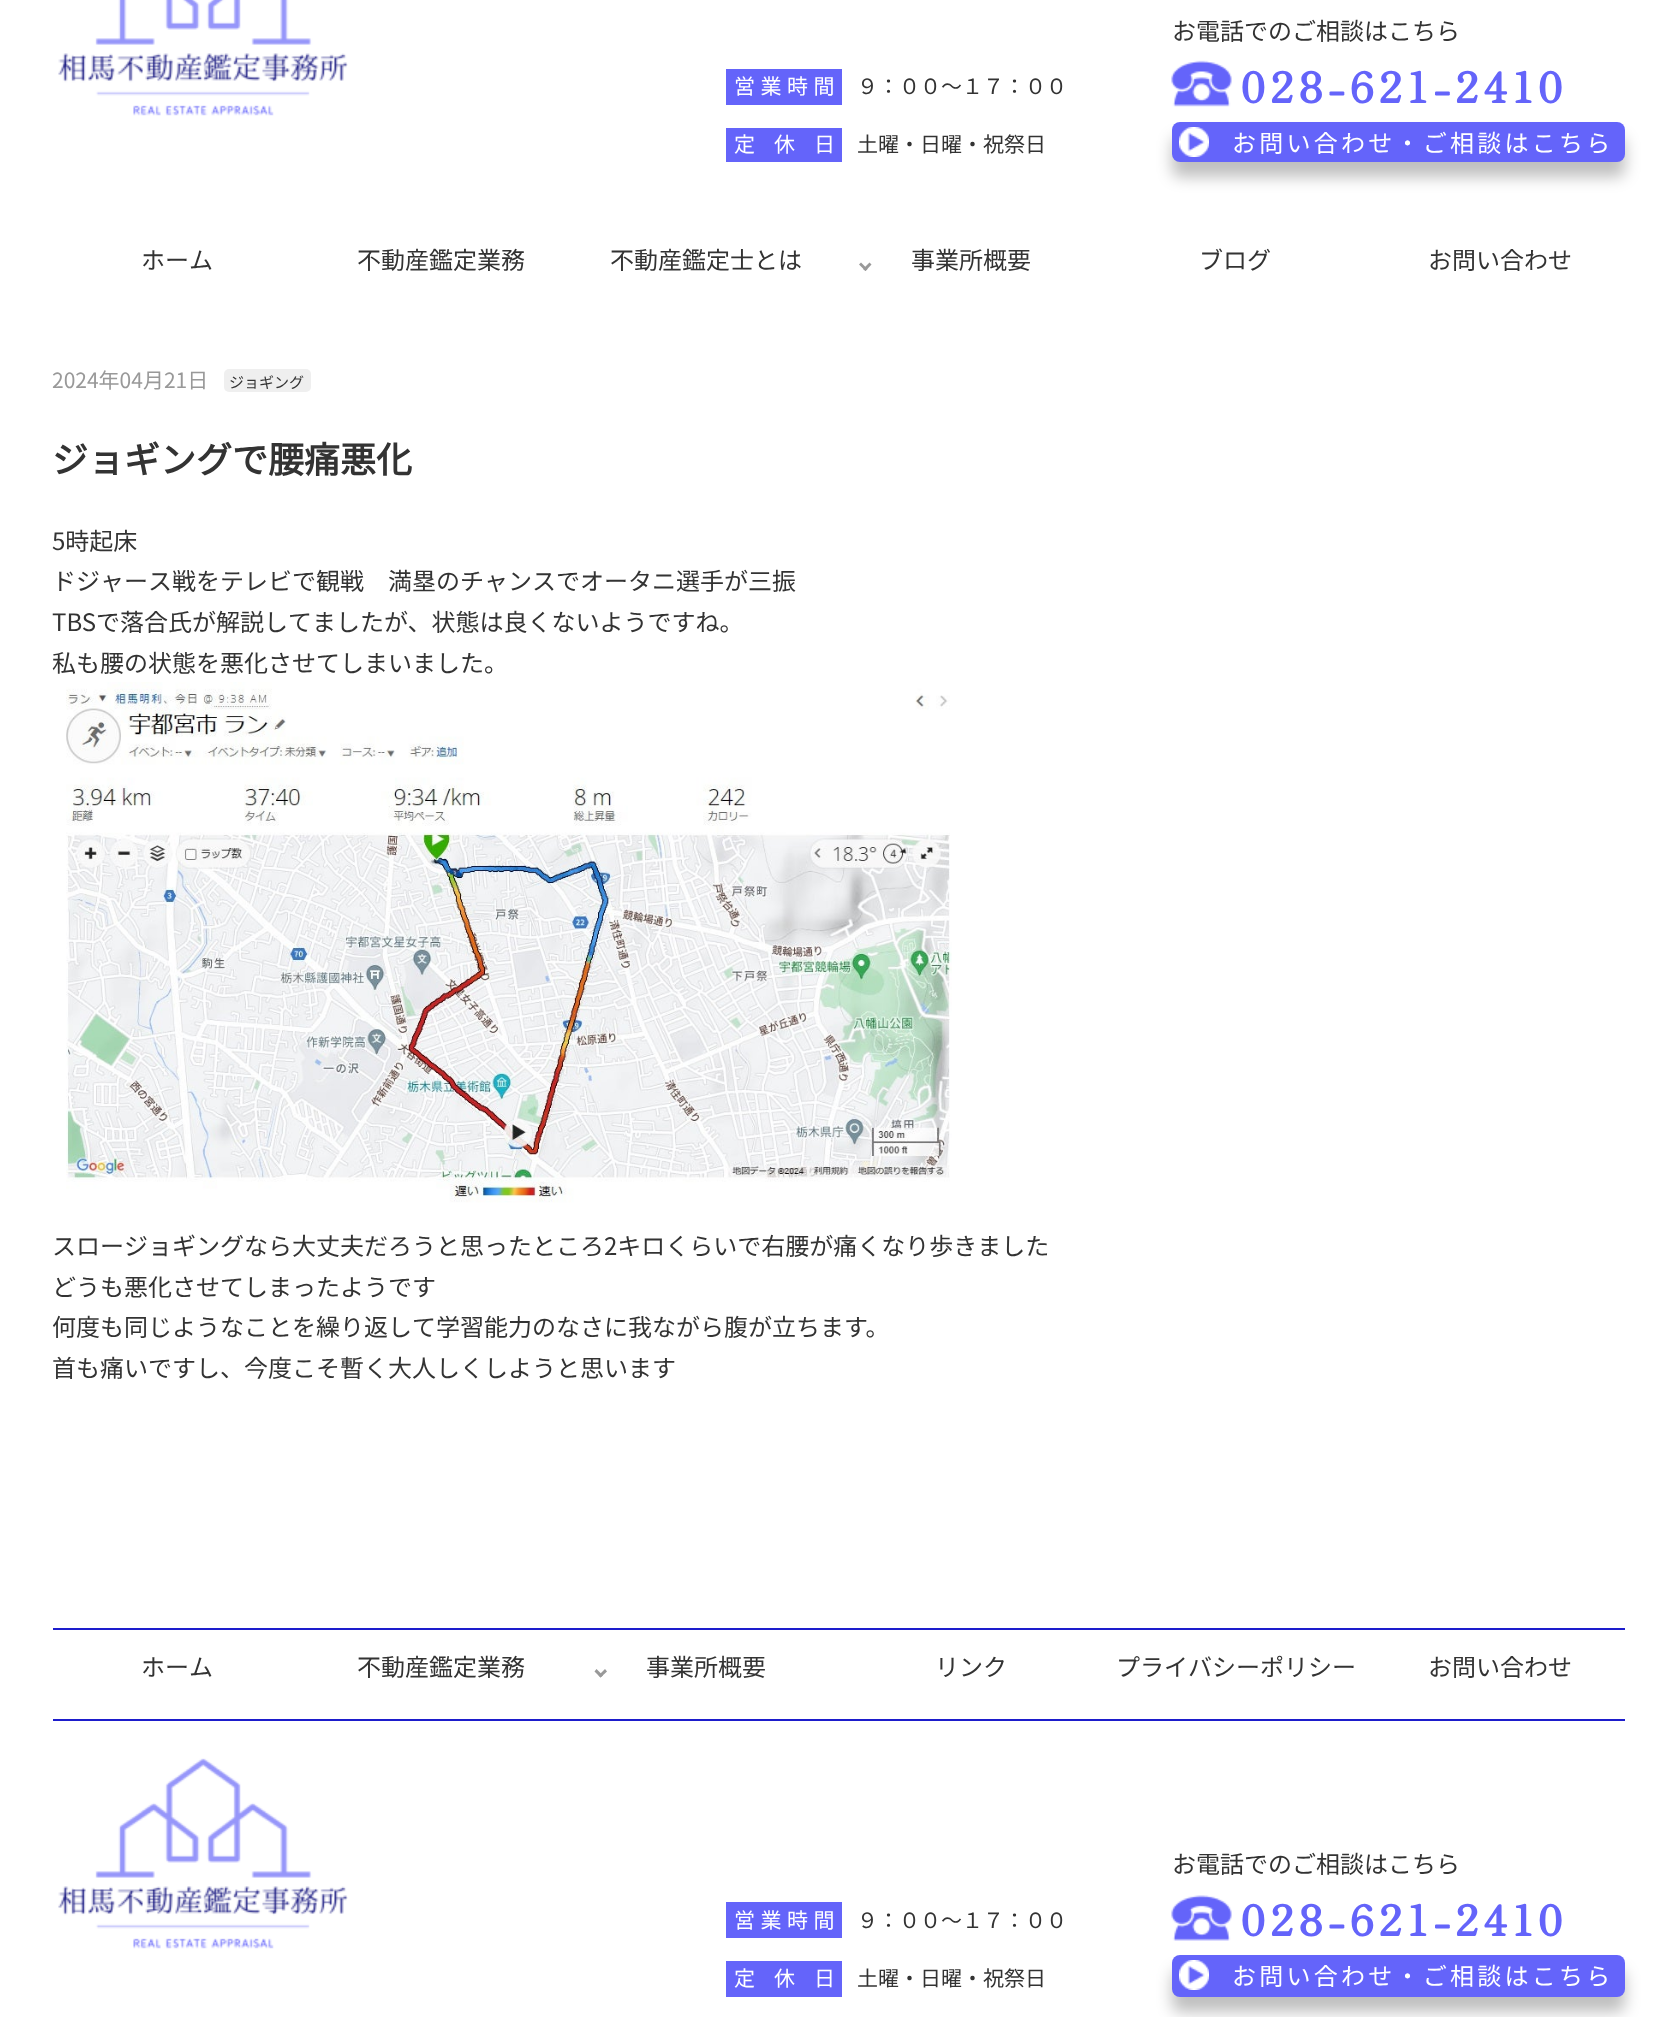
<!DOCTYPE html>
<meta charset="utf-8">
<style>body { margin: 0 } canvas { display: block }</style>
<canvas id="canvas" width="1676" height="2017"></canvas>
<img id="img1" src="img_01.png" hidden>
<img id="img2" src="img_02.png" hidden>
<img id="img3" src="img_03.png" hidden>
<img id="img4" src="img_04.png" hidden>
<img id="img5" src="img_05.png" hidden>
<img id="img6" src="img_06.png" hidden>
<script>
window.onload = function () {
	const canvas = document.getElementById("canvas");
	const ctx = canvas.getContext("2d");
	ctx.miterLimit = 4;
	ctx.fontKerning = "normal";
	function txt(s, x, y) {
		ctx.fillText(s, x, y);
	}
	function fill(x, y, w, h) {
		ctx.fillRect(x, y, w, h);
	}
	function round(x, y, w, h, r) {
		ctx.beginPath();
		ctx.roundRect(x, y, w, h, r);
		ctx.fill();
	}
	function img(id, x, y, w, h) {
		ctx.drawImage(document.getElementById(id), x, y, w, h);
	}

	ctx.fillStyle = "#FFFFFF";
	fill(0, 0, 1676, 2017);
	img("img1", 58, 0, 290, 116);
	ctx.fillStyle = "#6464FA";
	fill(726, 69, 116, 36);
	fill(726, 128, 116, 34);
	img("img2", 1171, 60, 61, 47);
	ctx.fillStyle = "rgba(0, 0, 0, 0.25)";
	ctx.filter = "blur(7.5px)";
	ctx.beginPath();
	ctx.roundRect(1172, 137, 453, 40, 8);
	ctx.fill();
	ctx.filter = "none";
	ctx.fillStyle = "#6464FA";
	round(1172, 122, 453, 40, 8);
	img("img3", 1179, 127, 30, 30);
	ctx.fillStyle = "#999999";
	ctx.beginPath();
	ctx.moveTo(871.5, 264.5);
	ctx.lineTo(865.5, 271);
	ctx.lineTo(863, 269);
	ctx.lineTo(869.5, 262.5);
	ctx.closePath();
	ctx.fill();
	ctx.beginPath();
	ctx.moveTo(867.5, 269);
	ctx.lineTo(865.5, 271);
	ctx.lineTo(859, 264.5);
	ctx.lineTo(861, 262.5);
	ctx.closePath();
	ctx.fill();
	ctx.fillStyle = "#EFEFEF";
	round(224, 369, 87, 23, 5);
	img("img4", 66, 682, 886, 521);
	ctx.fillStyle = "#1D1DCC";
	fill(53, 1628, 1572, 2);
	fill(53, 1719, 1572, 2);
	ctx.fillStyle = "#999999";
	ctx.beginPath();
	ctx.moveTo(607, 1671.5);
	ctx.lineTo(600.5, 1677.5);
	ctx.lineTo(598.5, 1675.5);
	ctx.lineTo(605, 1669);
	ctx.closePath();
	ctx.fill();
	ctx.beginPath();
	ctx.moveTo(603, 1675.5);
	ctx.lineTo(600.5, 1677.5);
	ctx.lineTo(594.5, 1671.5);
	ctx.lineTo(596.5, 1669);
	ctx.closePath();
	ctx.fill();
	img("img5", 58, 1758, 290, 191);
	ctx.fillStyle = "#6464FA";
	fill(726, 1902, 116, 36);
	fill(726, 1961, 116, 36);
	img("img6", 1171, 1895, 61, 46);
	ctx.fillStyle = "rgba(0, 0, 0, 0.25)";
	ctx.filter = "blur(7.5px)";
	ctx.beginPath();
	ctx.roundRect(1172, 1970, 453, 42, 8);
	ctx.fill();
	ctx.filter = "none";
	ctx.fillStyle = "#6464FA";
	round(1172, 1955, 453, 42, 8);
	img("img3", 1179, 1960, 30, 30);
	ctx.letterSpacing = "5.5px";
	ctx.font = "100 21px Noto Sans JP";
	ctx.fillStyle = "#FFFFFF";
	txt("営業時間", 734, 94);
	ctx.letterSpacing = "0px";
	ctx.fillStyle = "#333333";
	txt("９：００〜１７：００", 857, 94);
	ctx.letterSpacing = "19px";
	ctx.fillStyle = "#FFFFFF";
	txt("定休日", 734, 152);
	ctx.letterSpacing = "0px";
	ctx.fillStyle = "#333333";
	txt("土曜・日曜・祝祭日", 857, 152);
	ctx.font = "100 24px Noto Sans JP";
	txt("お電話でのご相談はこちら", 1172, 40);
	ctx.letterSpacing = "4.25px";
	ctx.font = "bold 42px Zen Old Mincho";
	ctx.fillStyle = "#6464FA";
	txt("028-621-2410", 1240, 103);
	ctx.letterSpacing = "3.25px";
	ctx.font = "100 24px Noto Sans JP";
	ctx.fillStyle = "#FFFFFF";
	txt("お問い合わせ・ご相談はこちら", 1232, 152);
	ctx.letterSpacing = "0px";
	ctx.fillStyle = "#333333";
	txt("ホーム", 141, 269);
	txt("不動産鑑定業務", 357, 269);
	txt("不動産鑑定士とは", 610, 269);
	txt("事業所概要", 911, 269);
	txt("ブログ", 1199, 269);
	txt("お問い合わせ", 1428, 269);
	ctx.font = "100 21px Noto Sans JP";
	ctx.fillStyle = "#999999";
	txt("2024年04月21日", 52, 388);
	ctx.font = "100 15px Noto Sans JP";
	ctx.fillStyle = "#333333";
	txt("ジョギング", 229, 388);
	ctx.font = "bold 36px Noto Sans JP";
	txt("ジョギングで腰痛悪化", 52, 473);
	ctx.font = "100 24px Noto Sans JP";
	txt("5時起床", 52, 550);
	txt("ドジャース戦をテレビで観戦　満塁のチャンスでオータニ選手が三振", 52, 590);
	txt("TBSで落合氏が解説してましたが、状態は良くないようですね。", 52, 631);
	txt("私も腰の状態を悪化させてしまいました。", 52, 672);
	txt("スロージョギングなら大丈夫だろうと思ったところ2キロくらいで右腰が痛くなり歩きました", 52, 1255);
	txt("どうも悪化させてしまったようです", 52, 1296);
	txt("何度も同じようなことを繰り返して学習能力のなさに我ながら腹が立ちます。", 52, 1336);
	txt("首も痛いですし、今度こそ暫く大人しくしようと思います", 52, 1377);
	txt("ホーム", 141, 1676);
	txt("不動産鑑定業務", 357, 1676);
	txt("事業所概要", 646, 1676);
	txt("リンク", 935, 1676);
	txt("プライバシーポリシー", 1116, 1676);
	txt("お問い合わせ", 1428, 1676);
	ctx.letterSpacing = "5.5px";
	ctx.font = "100 21px Noto Sans JP";
	ctx.fillStyle = "#FFFFFF";
	txt("営業時間", 734, 1928);
	ctx.letterSpacing = "0px";
	ctx.fillStyle = "#333333";
	txt("９：００〜１７：００", 857, 1928);
	ctx.letterSpacing = "19px";
	ctx.fillStyle = "#FFFFFF";
	txt("定休日", 734, 1986);
	ctx.letterSpacing = "0px";
	ctx.fillStyle = "#333333";
	txt("土曜・日曜・祝祭日", 857, 1986);
	ctx.font = "100 24px Noto Sans JP";
	txt("お電話でのご相談はこちら", 1172, 1873);
	ctx.letterSpacing = "4.25px";
	ctx.font = "bold 42px Zen Old Mincho";
	ctx.fillStyle = "#6464FA";
	txt("028-621-2410", 1240, 1936);
	ctx.letterSpacing = "3.25px";
	ctx.font = "100 24px Noto Sans JP";
	ctx.fillStyle = "#FFFFFF";
	txt("お問い合わせ・ご相談はこちら", 1232, 1985);
};
</script>
